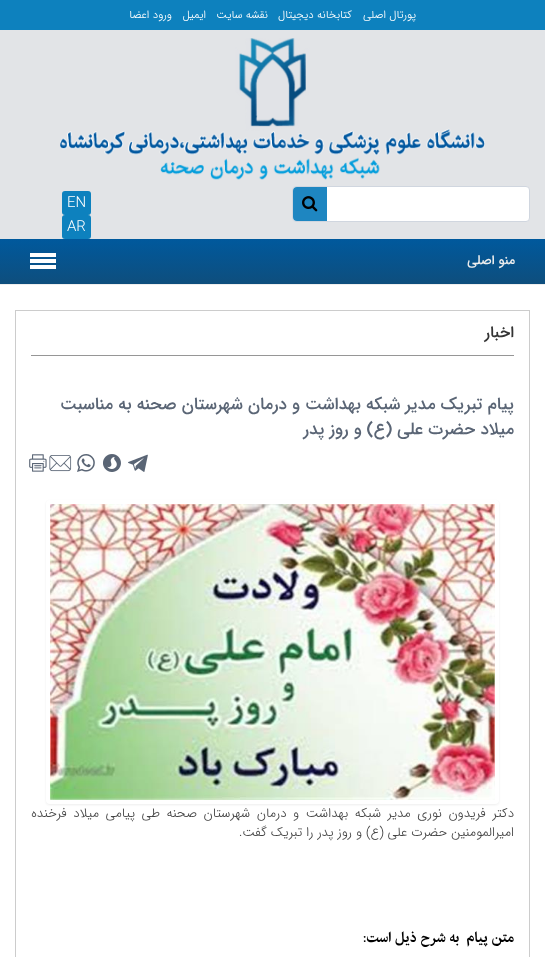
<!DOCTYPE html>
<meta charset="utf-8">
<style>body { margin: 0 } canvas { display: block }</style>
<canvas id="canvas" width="545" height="957"></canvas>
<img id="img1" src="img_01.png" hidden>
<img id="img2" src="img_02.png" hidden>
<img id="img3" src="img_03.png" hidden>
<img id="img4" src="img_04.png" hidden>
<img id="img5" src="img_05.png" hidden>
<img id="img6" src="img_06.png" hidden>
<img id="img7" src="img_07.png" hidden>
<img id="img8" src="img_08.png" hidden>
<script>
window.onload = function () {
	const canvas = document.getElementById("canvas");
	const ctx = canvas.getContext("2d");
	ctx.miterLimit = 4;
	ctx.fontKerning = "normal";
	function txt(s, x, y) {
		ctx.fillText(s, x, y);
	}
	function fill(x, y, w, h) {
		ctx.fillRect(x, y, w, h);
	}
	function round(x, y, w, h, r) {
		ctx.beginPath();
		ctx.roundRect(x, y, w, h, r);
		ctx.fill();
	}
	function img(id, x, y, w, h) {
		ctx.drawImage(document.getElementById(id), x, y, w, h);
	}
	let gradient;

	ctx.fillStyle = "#FFFFFF";
	fill(0, 0, 545, 957);
	ctx.fillStyle = "#0D81BE";
	fill(0, 0, 545, 30);
	ctx.fillStyle = "#E2E4E7";
	fill(0, 30, 545, 209);
	img("img1", 60, 38, 425, 142);
	ctx.fillStyle = "#FFFFFF";
	ctx.beginPath();
	ctx.roundRect(292.5, 186.5, 237, 35, 3.5);
	ctx.fill();
	ctx.strokeStyle = "#D0D6DF";
	ctx.stroke();
	ctx.fillStyle = "#1E86C1";
	ctx.beginPath();
	ctx.roundRect(293, 187, 34, 34, [4, 0, 0, 4]);
	ctx.fill();
	img("img2", 302, 196, 16, 16);
	ctx.fillStyle = "#0D81BE";
	round(62, 191, 29, 24, 3);
	round(62, 215, 29, 24, 3);
	gradient = ctx.createLinearGradient(273, 239, 273, 284);
	gradient.addColorStop(0, "#00599D");
	gradient.addColorStop(1, "#0E4E7D");
	ctx.fillStyle = gradient;
	fill(0, 239, 545, 45);
	ctx.fillStyle = "#FFFFFF";
	fill(30, 253, 26, 4);
	fill(30, 259, 26, 4);
	fill(30, 265, 26, 4);
	ctx.fillStyle = "#EEEEEE";
	fill(0, 284, 545, 1);
	ctx.fillStyle = "#CCCCCC";
	fill(15, 310, 515, 1);
	ctx.beginPath();
	ctx.moveTo(530, 310);
	ctx.lineTo(530, 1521);
	ctx.lineTo(529, 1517);
	ctx.lineTo(529, 311);
	ctx.closePath();
	ctx.fill();
	ctx.beginPath();
	ctx.moveTo(15, 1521);
	ctx.lineTo(15, 310);
	ctx.lineTo(16, 311);
	ctx.lineTo(16, 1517);
	ctx.closePath();
	ctx.fill();
	ctx.fillStyle = "#969696";
	fill(31, 355, 483, 1);
	img("img3", 128, 454, 20, 18);
	img("img4", 103, 454, 18, 18);
	img("img5", 77, 454, 18, 18);
	img("img6", 49, 455, 23, 17);
	img("img7", 29, 454, 18, 18);
	ctx.fillStyle = "rgba(0, 0, 0, 0.07)";
	ctx.filter = "blur(1px)";
	ctx.beginPath();
	ctx.roundRect(46, 501, 453, 304, 4);
	ctx.fill();
	ctx.filter = "none";
	ctx.fillStyle = "#FFFFFF";
	round(46, 500, 453, 304, 4);
	img("img8", 50, 504, 445, 296);
	ctx.direction = "rtl";
	ctx.font = "300 11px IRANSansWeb";
	txt("پورتال اصلی", 416, 18);
	txt("کتابخانه دیجیتال", 352, 18);
	txt("نقشه سایت", 268, 18);
	txt("ایمیل", 206, 18);
	txt("ورود اعضا", 172, 18);
	ctx.direction = "ltr";
	ctx.font = "300 15px IRANSansWeb";
	txt("EN", 67, 207);
	txt("AR", 67, 231);
	ctx.direction = "rtl";
	ctx.font = "500 13px IRANSansWeb";
	ctx.fillStyle = "#EEEEEE";
	txt("منو اصلی", 515, 264);
	ctx.font = "500 16px IRANSansWeb";
	ctx.fillStyle = "#333333";
	txt("اخبار", 514, 337);
	ctx.font = "500 17px IRANSansWeb";
	ctx.fillStyle = "#5A6575";
	txt("پیام تبریک مدیر شبکه بهداشت و درمان شهرستان صحنه به مناسبت", 514, 409);
	txt("میلاد حضرت علی (ع) و روز پدر", 514, 434);
	ctx.wordSpacing = "2.6px";
	ctx.font = "300 13px IRANSansWeb";
	ctx.fillStyle = "#464646";
	txt("دکتر فریدون نوری مدیر شبکه بهداشت و درمان شهرستان صحنه طی پیامی میلاد فرخنده", 514, 817);
	ctx.wordSpacing = "0px";
	txt("امیرالمومنین حضرت علی (ع) و روز پدر را تبریک گفت.", 514, 836);
	ctx.font = "bold 14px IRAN";
	ctx.fillStyle = "#000000";
	txt("متن پیام  به شرح ذیل است", 514, 942);
	ctx.direction = "ltr";
	ctx.font = "14px IRAN";
	txt(":", 363, 942);
};
</script>
